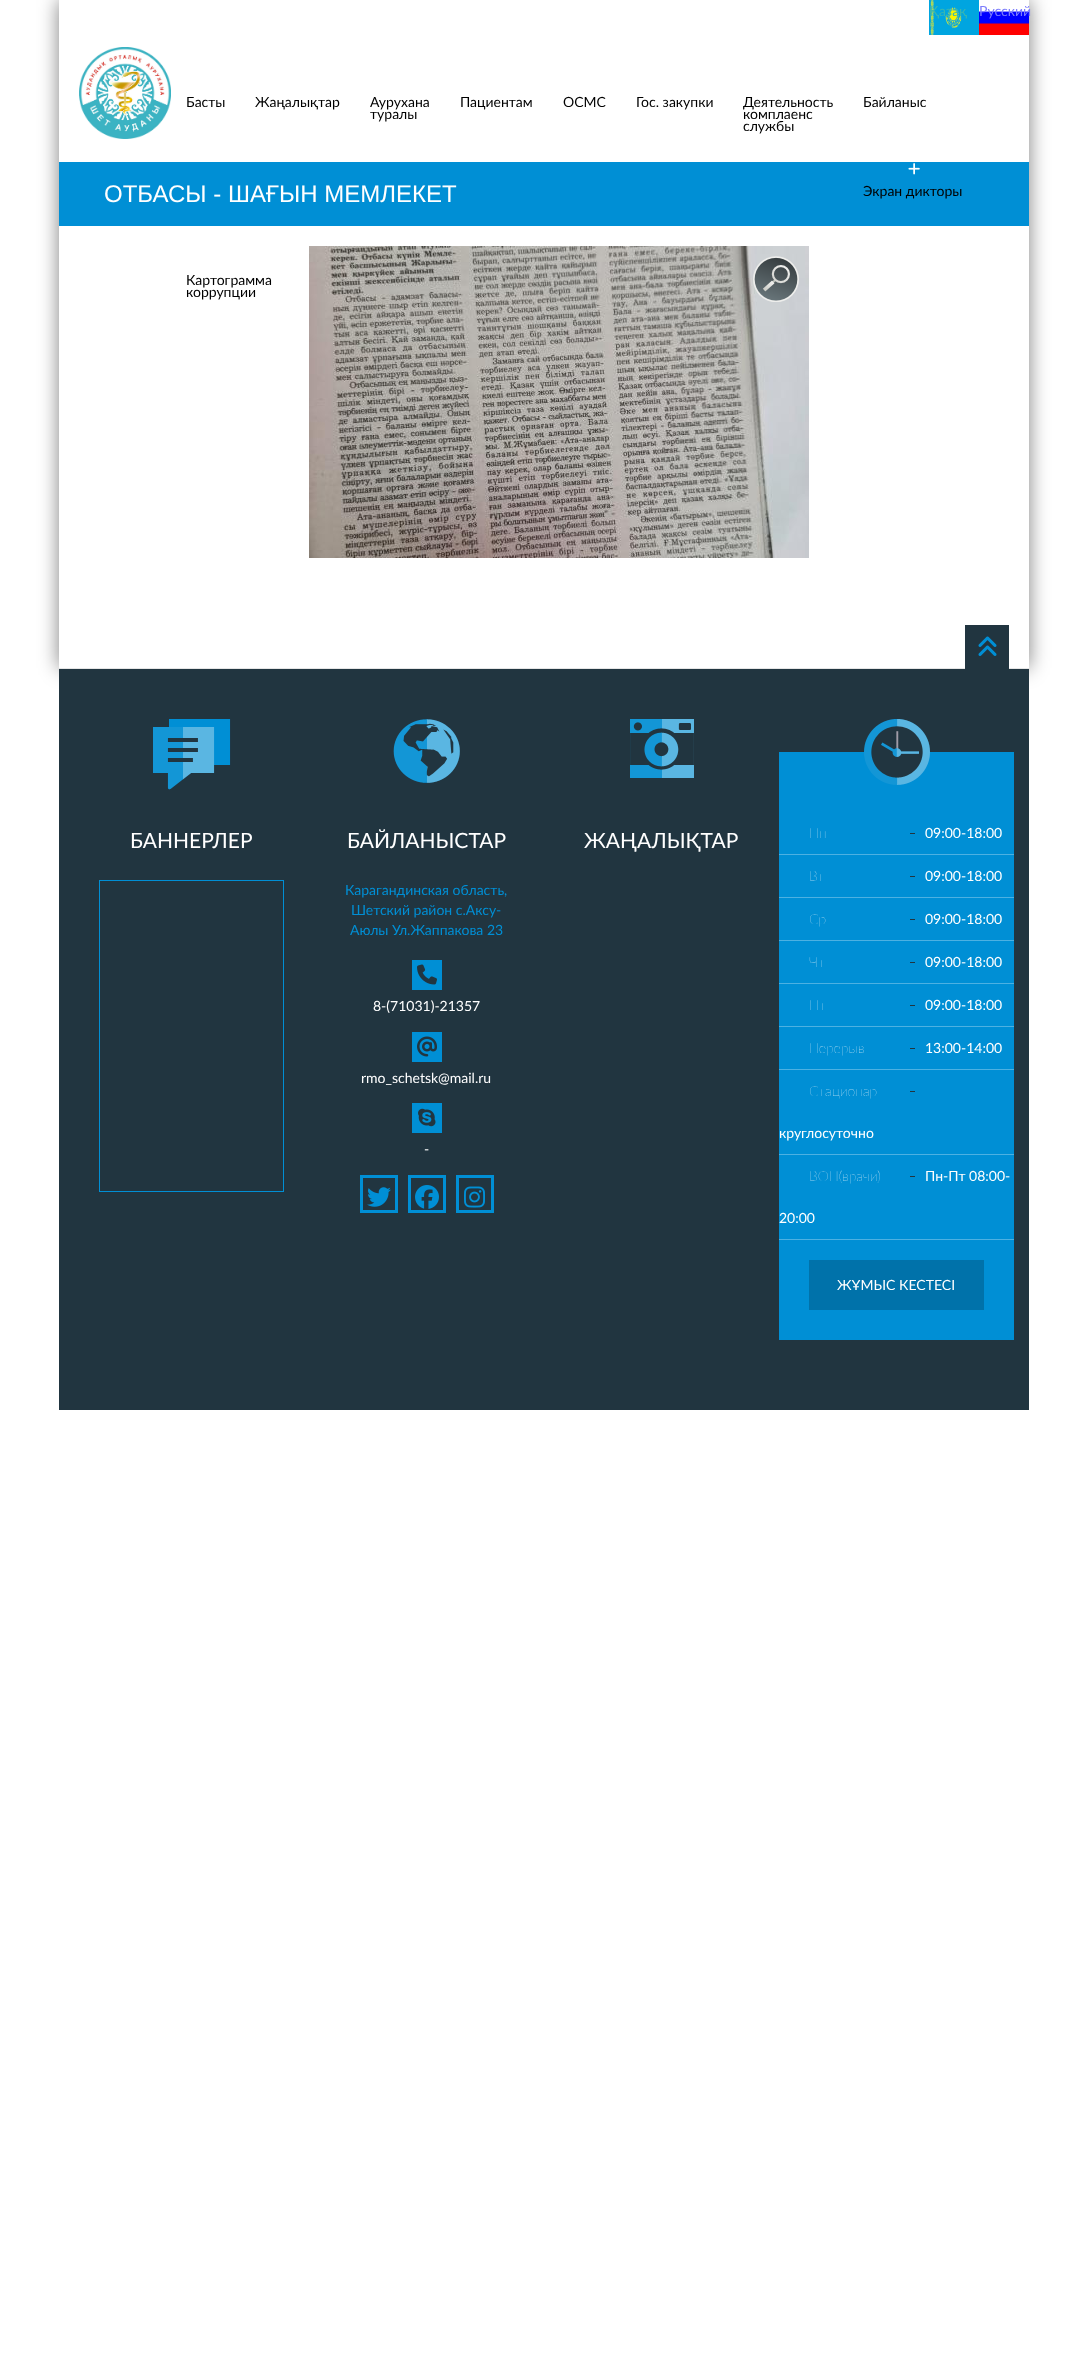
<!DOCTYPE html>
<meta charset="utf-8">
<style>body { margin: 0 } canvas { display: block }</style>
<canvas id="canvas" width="1088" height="2376"></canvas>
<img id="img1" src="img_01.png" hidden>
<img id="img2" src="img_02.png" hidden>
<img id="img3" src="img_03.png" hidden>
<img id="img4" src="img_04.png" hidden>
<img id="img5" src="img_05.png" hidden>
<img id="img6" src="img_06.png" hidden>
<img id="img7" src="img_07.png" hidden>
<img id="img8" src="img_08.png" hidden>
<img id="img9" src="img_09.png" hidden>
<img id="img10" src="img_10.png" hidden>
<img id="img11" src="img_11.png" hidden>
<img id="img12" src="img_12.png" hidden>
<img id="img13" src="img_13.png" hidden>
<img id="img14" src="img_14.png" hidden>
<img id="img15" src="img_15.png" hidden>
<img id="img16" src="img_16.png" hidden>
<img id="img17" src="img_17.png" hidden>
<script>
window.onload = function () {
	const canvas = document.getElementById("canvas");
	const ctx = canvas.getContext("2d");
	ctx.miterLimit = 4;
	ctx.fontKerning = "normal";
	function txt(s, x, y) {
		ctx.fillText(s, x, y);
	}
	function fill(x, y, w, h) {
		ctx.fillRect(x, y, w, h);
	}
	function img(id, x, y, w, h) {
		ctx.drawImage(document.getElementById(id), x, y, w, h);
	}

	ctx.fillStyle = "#FFFFFF";
	fill(0, 0, 1088, 2376);
	ctx.save();
	ctx.beginPath();
	ctx.moveTo(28, 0);
	ctx.lineTo(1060, 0);
	ctx.lineTo(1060, 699);
	ctx.lineTo(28, 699);
	ctx.closePath();
	ctx.moveTo(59, 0);
	ctx.lineTo(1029, 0);
	ctx.lineTo(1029, 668);
	ctx.lineTo(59, 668);
	ctx.closePath();
	ctx.clip("evenodd");
	ctx.fillStyle = "rgba(0, 0, 0, 0.5)";
	ctx.filter = "blur(10px)";
	ctx.beginPath();
	ctx.rect(59, 0, 970, 668);
	ctx.fill();
	ctx.filter = "none";
	ctx.restore();
	img("img1", 929, 0, 50, 35);
	img("img2", 979, 11, 50, 24);
	img("img3", 79, 47, 92, 92);
	ctx.fillStyle = "#008FD5";
	fill(59, 162, 970, 64);
	img("img4", 908, 163, 12, 12);
	img("img5", 309, 246, 500, 312);
	img("img6", 753, 256, 46, 46);
	ctx.fillStyle = "#E5E5E5";
	fill(59, 668, 970, 1);
	ctx.fillStyle = "#213540";
	fill(59, 669, 970, 741);
	fill(965, 625, 44, 44);
	img("img7", 978, 636, 19, 20);
	img("img8", 153, 719, 78, 71);
	ctx.strokeStyle = "#008FD5";
	ctx.strokeRect(99.5, 880.5, 184, 311);
	img("img9", 393, 719, 67, 64);
	ctx.fillStyle = "#008FD5";
	fill(412, 960, 30, 30);
	img("img10", 417, 964, 20, 21);
	fill(412, 1032, 30, 30);
	img("img11", 417, 1036, 20, 21);
	fill(412, 1103, 30, 30);
	img("img12", 418, 1108, 18, 19);
	ctx.lineWidth = 3;
	ctx.strokeRect(361.5, 1176.5, 35, 35);
	img("img13", 367, 1187, 24, 20);
	ctx.strokeRect(409.5, 1176.5, 35, 35);
	img("img14", 415, 1185, 24, 24);
	ctx.strokeRect(457.5, 1176.5, 35, 35);
	img("img15", 464, 1186, 21, 22);
	img("img16", 630, 719, 64, 59);
	fill(779, 752, 235, 588);
	img("img17", 864, 719, 66, 66);
	ctx.fillStyle = "#213540";
	fill(910, 833, 5, 1);
	ctx.fillStyle = "#4DB1E2";
	fill(779, 854, 235, 1);
	ctx.fillStyle = "#213540";
	fill(910, 876, 5, 1);
	ctx.fillStyle = "#4DB1E2";
	fill(779, 897, 235, 1);
	ctx.fillStyle = "#213540";
	fill(910, 919, 5, 1);
	ctx.fillStyle = "#4DB1E2";
	fill(779, 940, 235, 1);
	ctx.fillStyle = "#213540";
	fill(910, 962, 5, 1);
	ctx.fillStyle = "#4DB1E2";
	fill(779, 983, 235, 1);
	ctx.fillStyle = "#213540";
	fill(910, 1005, 5, 1);
	ctx.fillStyle = "#4DB1E2";
	fill(779, 1026, 235, 1);
	ctx.fillStyle = "#213540";
	fill(910, 1048, 5, 1);
	ctx.fillStyle = "#4DB1E2";
	fill(779, 1069, 235, 1);
	ctx.fillStyle = "#213540";
	fill(910, 1091, 5, 1);
	ctx.fillStyle = "#4DB1E2";
	fill(779, 1154, 235, 1);
	fill(779, 1239, 235, 1);
	ctx.fillStyle = "#213540";
	fill(910, 1176, 5, 1);
	ctx.fillStyle = "#0072AA";
	fill(809, 1260, 175, 50);
	ctx.font = "14px Lato";
	ctx.fillStyle = "#38B6B1";
	txt("Қазақ", 929, 16);
	ctx.fillStyle = "#7E7EFC";
	txt("Русский", 979, 16);
	ctx.fillStyle = "#000000";
	txt("Басты", 186, 107);
	txt("Жаңалықтар", 255, 107);
	txt("Аурухана", 370, 107);
	txt("туралы", 370, 119);
	txt("Пациентам", 460, 107);
	txt("ОСМС", 563, 107);
	txt("Гос. закупки", 636, 107);
	txt("Деятельность", 743, 107);
	txt("комплаенс", 743, 119);
	txt("службы", 743, 131);
	txt("Байланыс", 863, 107);
	txt("Экран дикторы", 863, 196);
	txt("Картограмма", 186, 285);
	txt("коррупции", 186, 297);
	ctx.font = "24px Liberation Sans";
	ctx.fillStyle = "#FFFFFF";
	txt("ОТБАСЫ - ШАҒЫН МЕМЛЕКЕТ", 104, 202);
	ctx.font = "21px Lato";
	txt("БАННЕРЛЕР", 130, 848);
	txt("БАЙЛАНЫСТАР", 347, 848);
	ctx.font = "14px Lato";
	ctx.fillStyle = "#008FD5";
	txt("Карагандинская область,", 345, 895);
	txt("Шетский район с.Аксу-", 351, 915);
	txt("Аюлы Ул.Жаппакова 23", 350, 935);
	ctx.fillStyle = "#FFFFFF";
	txt("8-(71031)-21357", 373, 1011);
	txt("rmo_schetsk@mail.ru", 361, 1083);
	txt("-", 424, 1154);
	ctx.font = "21px Lato";
	txt("ЖАҢАЛЫҚТАР", 584, 848);
	ctx.font = "200 14px Lato";
	txt("Пн", 809, 838);
	ctx.font = "14px Lato";
	txt("09:00-18:00", 925, 838);
	ctx.font = "200 14px Lato";
	txt("Вт", 809, 881);
	ctx.font = "14px Lato";
	txt("09:00-18:00", 925, 881);
	ctx.font = "200 14px Lato";
	txt("Ср", 809, 924);
	ctx.font = "14px Lato";
	txt("09:00-18:00", 925, 924);
	ctx.font = "200 14px Lato";
	txt("Чт", 809, 967);
	ctx.font = "14px Lato";
	txt("09:00-18:00", 925, 967);
	ctx.font = "200 14px Lato";
	txt("Пт", 809, 1010);
	ctx.font = "14px Lato";
	txt("09:00-18:00", 925, 1010);
	ctx.font = "200 14px Lato";
	txt("Перерыв", 809, 1053);
	ctx.font = "14px Lato";
	txt("13:00-14:00", 925, 1053);
	ctx.font = "200 14px Lato";
	txt("Стационар", 809, 1096);
	ctx.font = "14px Lato";
	txt("круглосуточно", 779, 1138);
	txt("Пн-Пт 08:00-", 925, 1181);
	txt("20:00", 779, 1223);
	ctx.font = "200 14px Lato";
	txt("ВОП(врачи)", 809, 1181);
	ctx.font = "14px Lato";
	txt("ЖҰМЫС КЕСТЕСІ", 837, 1290);
};
</script>
